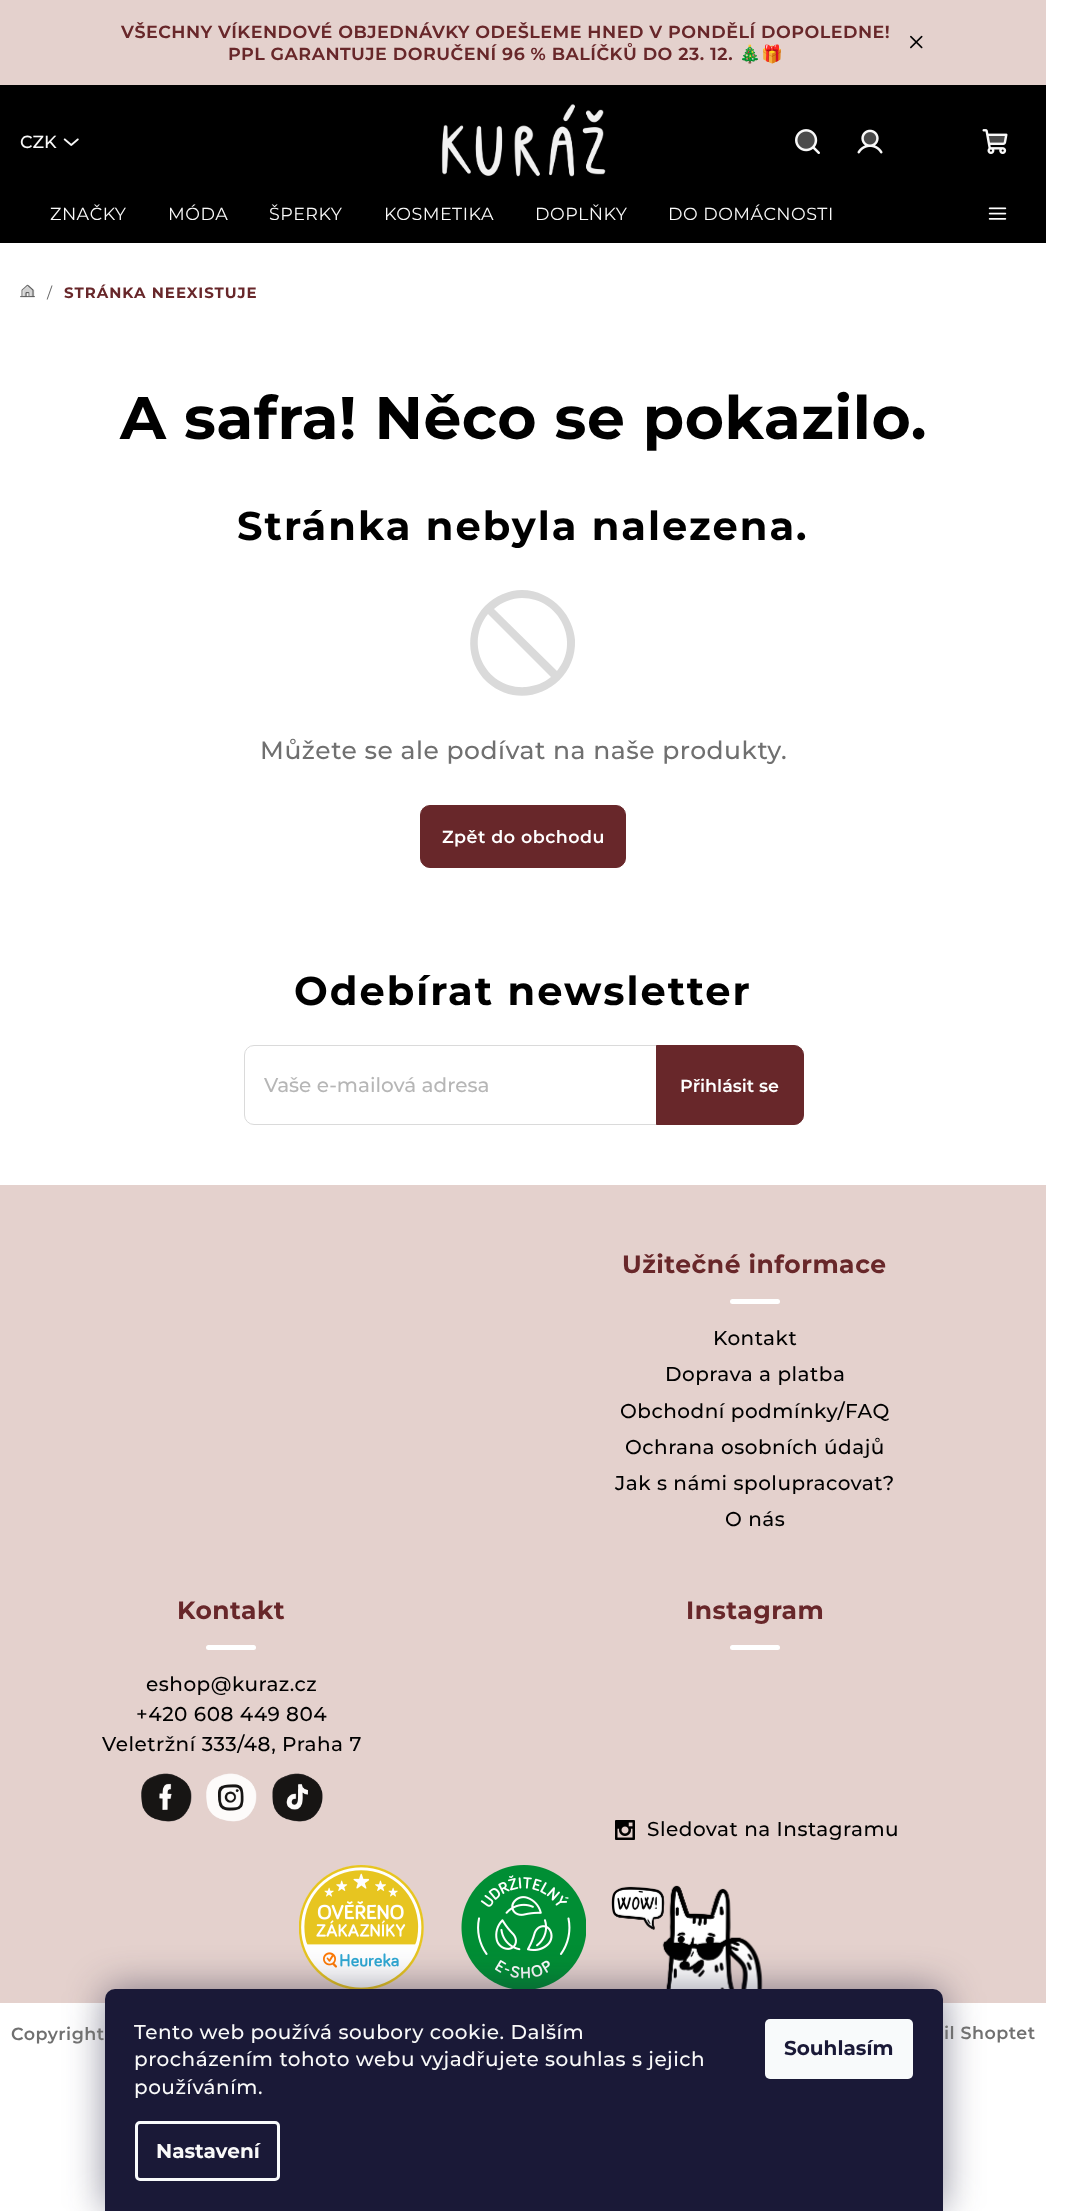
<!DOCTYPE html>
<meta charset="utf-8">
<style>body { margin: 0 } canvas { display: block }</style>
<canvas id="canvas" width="1065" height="2211"></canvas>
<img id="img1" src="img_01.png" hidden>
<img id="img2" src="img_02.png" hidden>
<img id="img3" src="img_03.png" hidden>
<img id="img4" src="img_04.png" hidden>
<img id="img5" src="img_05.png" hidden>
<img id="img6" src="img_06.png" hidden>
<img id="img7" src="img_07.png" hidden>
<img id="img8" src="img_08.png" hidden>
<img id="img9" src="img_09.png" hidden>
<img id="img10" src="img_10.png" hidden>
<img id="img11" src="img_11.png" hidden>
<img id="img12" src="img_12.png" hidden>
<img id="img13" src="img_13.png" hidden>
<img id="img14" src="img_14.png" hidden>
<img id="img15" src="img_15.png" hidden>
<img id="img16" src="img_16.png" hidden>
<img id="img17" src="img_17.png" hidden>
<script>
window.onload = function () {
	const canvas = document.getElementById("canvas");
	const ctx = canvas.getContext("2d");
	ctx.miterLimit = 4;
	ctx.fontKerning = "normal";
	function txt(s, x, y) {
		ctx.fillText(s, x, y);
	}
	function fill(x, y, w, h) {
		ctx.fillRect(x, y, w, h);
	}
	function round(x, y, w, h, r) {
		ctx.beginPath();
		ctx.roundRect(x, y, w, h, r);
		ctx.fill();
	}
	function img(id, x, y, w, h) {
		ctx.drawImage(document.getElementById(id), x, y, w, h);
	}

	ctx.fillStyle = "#FFFFFF";
	fill(0, 0, 1065, 2211);
	ctx.fillStyle = "#E4D1CD";
	fill(0, 0, 1046, 85);
	img("img1", 910, 35, 13, 14);
	ctx.fillStyle = "#000000";
	fill(0, 85, 1046, 158);
	img("img2", 63, 138, 16, 8);
	img("img3", 441, 104, 165, 73);
	img("img4", 795, 129, 25, 25);
	ctx.fillStyle = "rgba(249, 249, 249, 0.3)";
	ctx.beginPath();
	ctx.moveTo(806, 150);
	ctx.bezierCurveTo(819, 150, 819, 130.5, 806, 130.5);
	ctx.bezierCurveTo(793, 130.5, 793, 150, 806, 150);
	ctx.closePath();
	ctx.fill();
	img("img5", 857, 129, 26, 25);
	img("img6", 863, 132, 14, 13);
	img("img7", 982, 129, 26, 25);
	fill(988, 136, 17, 7);
	img("img8", 988, 207, 19, 13);
	img("img9", 20, 284, 15, 14);
	img("img10", 23, 285, 12, 12);
	ctx.fillStyle = "#DADADA";
	ctx.beginPath();
	ctx.moveTo(522, 590);
	ctx.bezierCurveTo(509, 590, 495, 596, 485, 606);
	ctx.bezierCurveTo(465, 627, 465, 661, 487, 682);
	ctx.bezierCurveTo(523, 714, 577, 686, 575, 640);
	ctx.bezierCurveTo(574, 628, 569, 617, 561, 608);
	ctx.bezierCurveTo(551, 597, 537, 590, 522, 590);
	ctx.closePath();
	ctx.moveTo(522, 598);
	ctx.bezierCurveTo(560, 598, 581, 643, 557, 671);
	ctx.lineTo(494, 609);
	ctx.bezierCurveTo(502, 602, 512, 598, 522, 598);
	ctx.closePath();
	ctx.moveTo(488, 614);
	ctx.lineTo(551, 677);
	ctx.bezierCurveTo(544, 683, 535, 686, 526, 687);
	ctx.bezierCurveTo(487, 690, 463, 645, 488, 614);
	ctx.closePath();
	ctx.fill();
	ctx.fillStyle = "#68272A";
	ctx.beginPath();
	ctx.roundRect(420.5, 805.5, 205, 62, 9.5);
	ctx.fill();
	ctx.strokeStyle = "#68272A";
	ctx.stroke();
	ctx.beginPath();
	ctx.roundRect(244.5, 1045.5, 559, 79, 9.5);
	ctx.strokeStyle = "#DADADA";
	ctx.stroke();
	ctx.beginPath();
	ctx.roundRect(656.5, 1045.5, 147, 79, [0, 9.5, 9.5, 0]);
	ctx.fill();
	ctx.strokeStyle = "#68272A";
	ctx.stroke();
	ctx.fillStyle = "#E4D1CD";
	fill(0, 1185, 1046, 818);
	ctx.fillStyle = "#FFFFFF";
	round(730, 1299, 50, 5, 2.5);
	round(206, 1645, 50, 5, 2.5);
	img("img11", 141, 1773, 51, 49);
	img("img12", 206, 1773, 51, 49);
	img("img13", 272, 1773, 51, 49);
	round(730, 1645, 50, 5, 2.5);
	img("img14", 615, 1820, 20, 20);
	img("img15", 299, 1865, 125, 124);
	img("img16", 461, 1865, 125, 124);
	img("img17", 611, 1885, 152, 104);
	ctx.fillStyle = "rgba(27, 25, 57, 0.5)";
	ctx.filter = "blur(19px)";
	ctx.beginPath();
	ctx.roundRect(105, 1989, 838, 222, 10);
	ctx.fill();
	ctx.filter = "none";
	ctx.fillStyle = "#1A1937";
	ctx.beginPath();
	ctx.roundRect(105, 1989, 838, 222, [10, 10, 0, 0]);
	ctx.fill();
	ctx.beginPath();
	ctx.roundRect(136.5, 2122.5, 142, 57, 3.5);
	ctx.strokeStyle = "#F8FAFB";
	ctx.lineWidth = 3;
	ctx.stroke();
	ctx.fillStyle = "#F8FAFB";
	round(765, 2019, 148, 60, 5);
	ctx.letterSpacing = "0.5px";
	ctx.font = "600 17.5px 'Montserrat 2'";
	ctx.fillStyle = "#68272A";
	txt("VŠECHNY VÍKENDOVÉ OBJEDNÁVKY ODEŠLEME HNED V PONDĚLÍ DOPOLEDNE!", 121, 38);
	txt("PPL GARANTUJE DORUČENÍ 96 % BALÍČKŮ DO 23. 12.", 228, 60);
	ctx.font = "bold 17.5px Noto Color Emoji";
	txt("🎄🎁", 739, 60);
	ctx.letterSpacing = "0px";
	ctx.font = "500 17.5px Montserrat";
	ctx.fillStyle = "#F9F9F9";
	txt("CZK", 20, 148);
	ctx.letterSpacing = "0.5px";
	ctx.font = "17.5px Montserrat";
	txt("ZNAČKY", 50, 220);
	txt("MÓDA", 168, 220);
	txt("ŠPERKY", 269, 220);
	txt("KOSMETIKA", 384, 220);
	txt("DOPLŇKY", 535, 220);
	txt("DO DOMÁCNOSTI", 668, 220);
	ctx.letterSpacing = "1px";
	ctx.font = "15px Montserrat";
	ctx.fillStyle = "#666666";
	txt("/", 47, 298);
	ctx.font = "bold 15px Montserrat";
	ctx.fillStyle = "#68272A";
	txt("STRÁNKA NEEXISTUJE", 64, 298);
	ctx.letterSpacing = "0.5px";
	ctx.font = "bold 60px Montserrat";
	ctx.fillStyle = "#000000";
	txt("A safra! Něco se pokazilo.", 120, 439);
	ctx.letterSpacing = "2px";
	ctx.font = "bold 40px Montserrat";
	txt("Stránka nebyla nalezena.", 237, 540);
	ctx.letterSpacing = "0.5px";
	ctx.font = "500 25px Montserrat";
	ctx.fillStyle = "#707070";
	txt("Můžete se ale podívat na naše produkty.", 260, 759);
	ctx.font = "600 17.5px Montserrat";
	ctx.fillStyle = "#FFFFFF";
	txt("Zpět do obchodu", 442, 843);
	ctx.letterSpacing = "2px";
	ctx.font = "bold 40px Montserrat";
	ctx.fillStyle = "#000000";
	txt("Odebírat newsletter", 294, 1005);
	ctx.letterSpacing = "0px";
	ctx.font = "500 20px Montserrat";
	ctx.fillStyle = "#B6B6B6";
	txt("Vaše e-mailová adresa", 264, 1092);
	ctx.font = "600 17.5px Montserrat";
	ctx.fillStyle = "#FFFFFF";
	txt("Přihlásit se", 680, 1092);
	ctx.letterSpacing = "0.5px";
	ctx.font = "bold 25px Montserrat";
	ctx.fillStyle = "#68272A";
	txt("Užitečné informace", 622, 1273);
	ctx.font = "500 20px Montserrat";
	ctx.fillStyle = "#000000";
	txt("Kontakt", 713, 1345);
	txt("Doprava a platba", 665, 1381);
	txt("Obchodní podmínky/FAQ", 620, 1418);
	txt("Ochrana osobních údajů", 625, 1454);
	txt("Jak s námi spolupracovat?", 615, 1490);
	txt("O nás", 725, 1526);
	ctx.font = "bold 25px Montserrat";
	ctx.fillStyle = "#68272A";
	txt("Kontakt", 177, 1619);
	ctx.font = "500 20px Montserrat";
	ctx.fillStyle = "#000000";
	txt("eshop@kuraz.cz", 146, 1691);
	txt("+420 608 449 804", 136, 1721);
	txt("Veletržní 333/48, Praha 7", 102, 1751);
	ctx.font = "bold 25px Montserrat";
	ctx.fillStyle = "#68272A";
	txt("Instagram", 686, 1619);
	ctx.font = "500 20px Montserrat";
	ctx.fillStyle = "#000000";
	txt("Sledovat na Instagramu", 647, 1836);
	ctx.font = "600 17.5px Montserrat";
	ctx.fillStyle = "#707070";
	txt("Copyright", 11, 2040);
	txt("il Shoptet", 944, 2039);
	ctx.font = "500 20px Montserrat";
	ctx.fillStyle = "#F9F9F9";
	txt("Tento web používá soubory cookie. Dalším", 134, 2039);
	txt("procházením tohoto webu vyjadřujete souhlas s jejich", 134, 2066);
	txt("používáním.", 134, 2094);
	ctx.letterSpacing = "0px";
	ctx.font = "bold 20px Montserrat";
	txt("Nastavení", 156, 2158);
	ctx.fillStyle = "#1A1937";
	txt("Souhlasím", 784, 2055);
};
</script>
